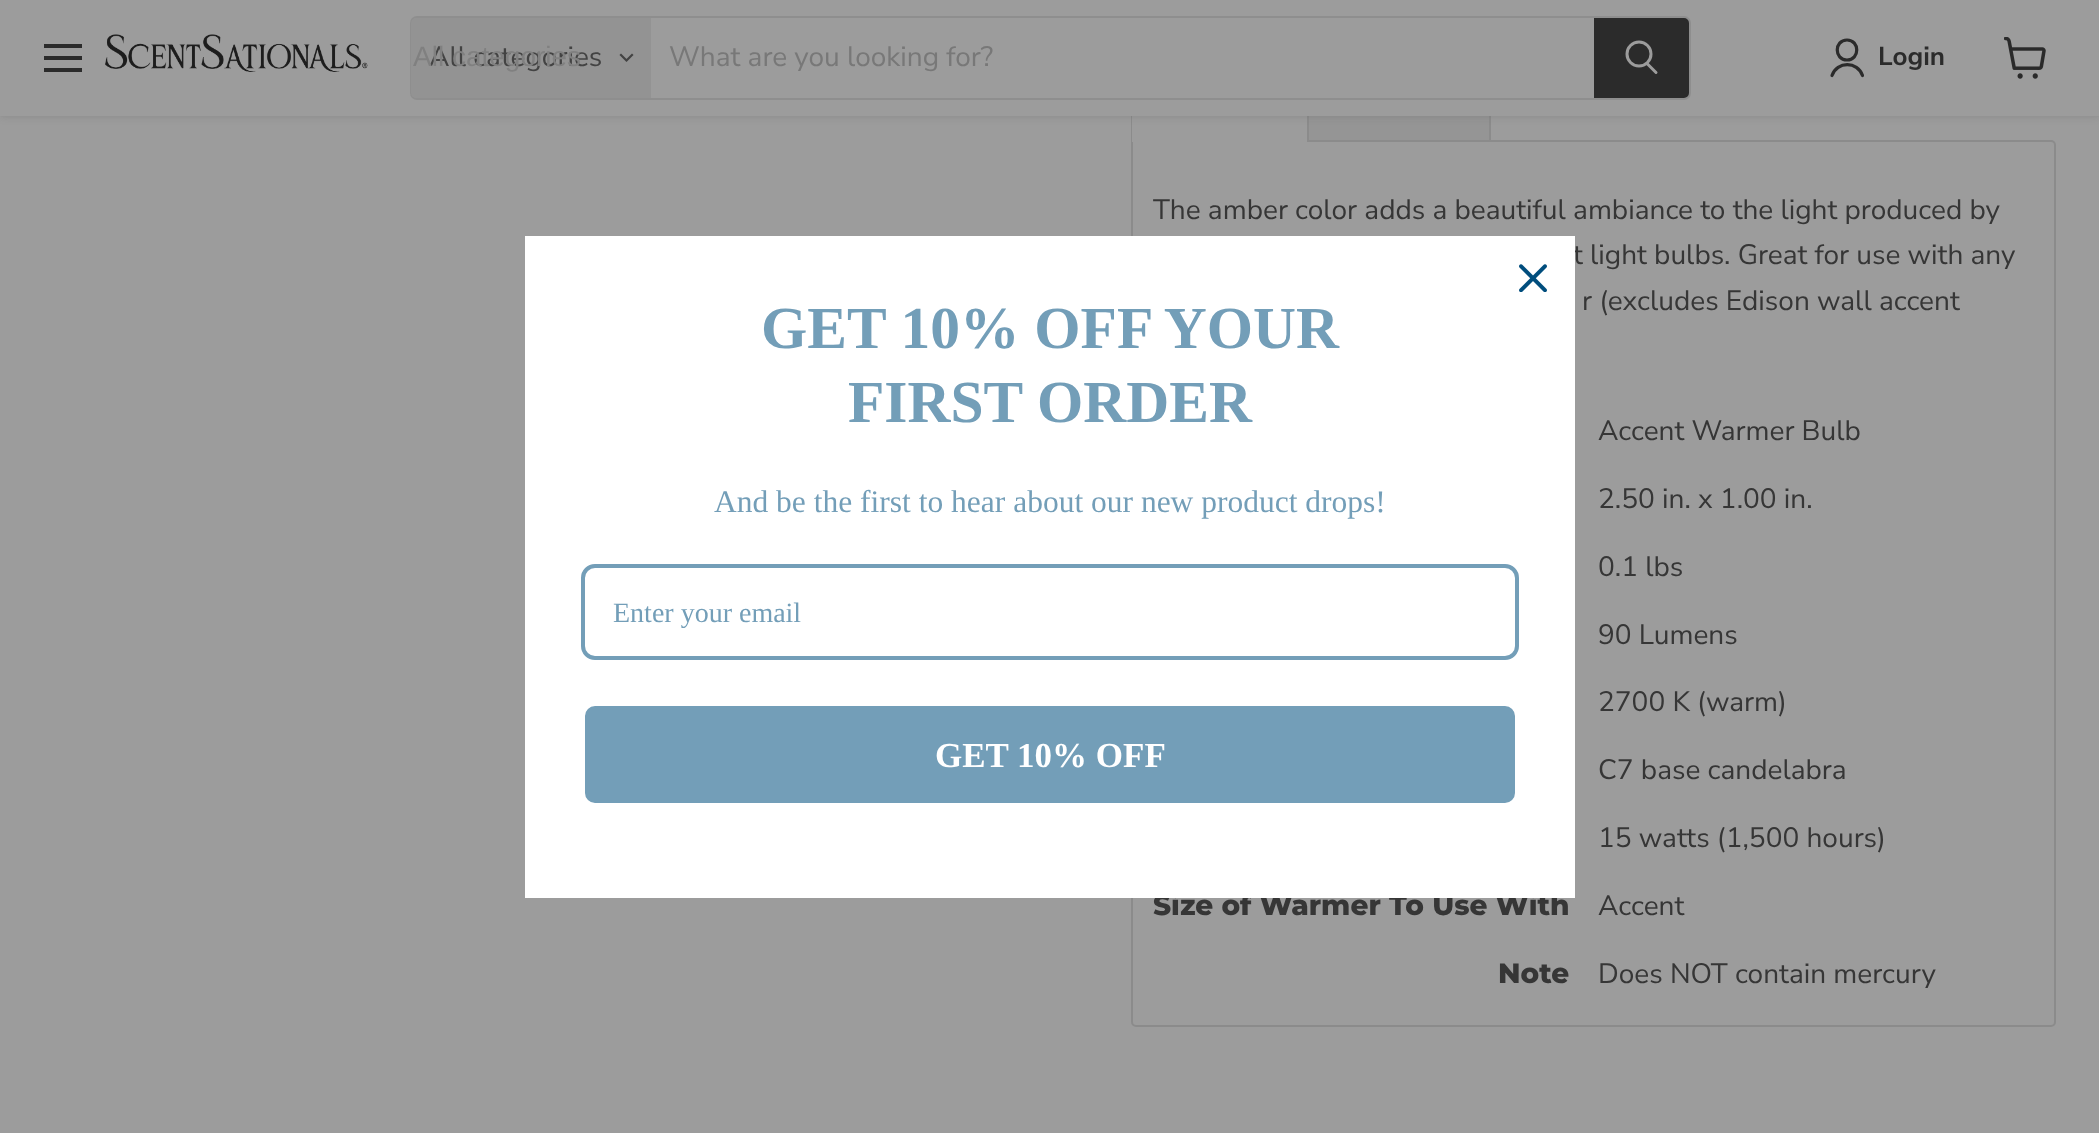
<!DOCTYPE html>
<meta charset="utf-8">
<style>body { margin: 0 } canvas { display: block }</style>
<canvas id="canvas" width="2099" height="1133"></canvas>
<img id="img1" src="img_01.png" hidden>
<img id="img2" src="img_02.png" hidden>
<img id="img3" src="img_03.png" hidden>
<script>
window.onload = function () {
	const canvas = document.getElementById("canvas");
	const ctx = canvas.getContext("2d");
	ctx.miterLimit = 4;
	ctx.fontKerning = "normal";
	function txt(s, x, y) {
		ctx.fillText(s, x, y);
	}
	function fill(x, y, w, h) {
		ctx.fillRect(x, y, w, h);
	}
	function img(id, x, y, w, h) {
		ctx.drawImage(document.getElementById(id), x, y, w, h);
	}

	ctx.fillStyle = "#9C9C9C";
	fill(0, 0, 2099, 1133);
	ctx.beginPath();
	ctx.roundRect(1132, 141, 923, 885, [0, 4, 4, 4]);
	ctx.strokeStyle = "#8B8B8B";
	ctx.lineWidth = 2;
	ctx.stroke();
	fill(1132, 140, 175, 2);
	ctx.save();
	ctx.beginPath();
	ctx.rect(1131, 70, 925, 72);
	ctx.clip();
	ctx.fillStyle = "#8B8B8B";
	ctx.beginPath();
	ctx.moveTo(1136, 70);
	ctx.lineTo(1309, 70);
	ctx.lineTo(1309, 142);
	ctx.lineTo(1130, 142);
	ctx.lineTo(1130, 75);
	ctx.bezierCurveTo(1130, 72, 1133, 70, 1136, 70);
	ctx.closePath();
	ctx.moveTo(1136, 72);
	ctx.lineTo(1307, 72);
	ctx.lineTo(1307, 142);
	ctx.lineTo(1132, 142);
	ctx.lineTo(1132, 75);
	ctx.bezierCurveTo(1132, 73, 1134, 72, 1136, 72);
	ctx.closePath();
	ctx.fill("evenodd");
	ctx.restore();
	ctx.fillStyle = "#959595";
	fill(1309, 116, 180, 24);
	ctx.fillStyle = "#8B8B8B";
	ctx.beginPath();
	ctx.moveTo(1309, 70);
	ctx.lineTo(1486, 70);
	ctx.bezierCurveTo(1489, 70, 1491, 72, 1491, 75);
	ctx.lineTo(1491, 142);
	ctx.lineTo(1309, 142);
	ctx.closePath();
	ctx.moveTo(1309, 72);
	ctx.lineTo(1486, 72);
	ctx.bezierCurveTo(1488, 72, 1489, 73, 1489, 75);
	ctx.lineTo(1489, 140);
	ctx.lineTo(1309, 140);
	ctx.closePath();
	ctx.fill("evenodd");
	ctx.fillStyle = "rgba(92, 92, 92, 0.25)";
	ctx.filter = "blur(3.5px)";
	ctx.beginPath();
	ctx.rect(0, 2, 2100, 115);
	ctx.fill();
	ctx.filter = "none";
	ctx.fillStyle = "#9C9C9C";
	fill(0, 0, 2099, 116);
	ctx.fillStyle = "#2B2B2B";
	fill(44, 44, 38, 4);
	fill(44, 56, 38, 4);
	fill(44, 68, 38, 4);
	img("img1", 105, 34, 263, 38);
	ctx.beginPath();
	ctx.roundRect(411, 17, 1279, 82, 6);
	ctx.strokeStyle = "rgba(92, 92, 92, 0.2)";
	ctx.stroke();
	ctx.fillStyle = "#939393";
	ctx.beginPath();
	ctx.roundRect(411, 18, 240, 80, [5, 0, 0, 5]);
	ctx.fill();
	ctx.beginPath();
	ctx.moveTo(626.5, 60.5);
	ctx.lineTo(632, 55);
	ctx.moveTo(626.5, 60.5);
	ctx.lineTo(621, 55);
	ctx.strokeStyle = "#434343";
	ctx.lineWidth = 2.2;
	ctx.lineCap = "square";
	ctx.stroke();
	ctx.fillStyle = "#2B2B2B";
	ctx.beginPath();
	ctx.roundRect(1595, 19, 93, 78, [0, 4, 4, 0]);
	ctx.fill();
	ctx.strokeStyle = "#2B2B2B";
	ctx.lineWidth = 2;
	ctx.stroke();
	ctx.beginPath();
	ctx.moveTo(1656, 72.5);
	ctx.lineTo(1647.5, 64);
	ctx.strokeStyle = "#9C9C9C";
	ctx.lineWidth = 3;
	ctx.lineCap = "round";
	ctx.stroke();
	ctx.beginPath();
	ctx.arc(1639, 54, 12, 0, Math.PI * 2);
	ctx.stroke();
	ctx.beginPath();
	ctx.moveTo(1847, 60);
	ctx.bezierCurveTo(1860, 60, 1860, 40, 1847, 40);
	ctx.bezierCurveTo(1834, 40, 1834, 60, 1847, 60);
	ctx.closePath();
	ctx.moveTo(1862.5, 75.5);
	ctx.bezierCurveTo(1857.5, 61, 1837, 61, 1832, 75.5);
	ctx.strokeStyle = "#2B2B2B";
	ctx.lineWidth = 3.2;
	ctx.lineJoin = "round";
	ctx.stroke();
	img("img2", 2004, 37, 42, 42);
	ctx.font = "28px Nunito Sans";
	ctx.fillStyle = "#434343";
	txt("All categories", 429, 66);
	ctx.font = "28px Liberation Sans";
	ctx.fillStyle = "#808080";
	txt("All categories", 413, 66);
	ctx.font = "28px Nunito Sans";
	ctx.fillStyle = "#787878";
	txt("What are you looking for?", 669, 66);
	ctx.font = "bold 26px Nunito Sans";
	ctx.fillStyle = "#2B2B2B";
	txt("Login", 1878, 65);
	ctx.font = "28px Nunito Sans";
	ctx.fillStyle = "#363636";
	txt("The amber color adds a beautiful ambiance to the light produced by", 1153, 219);
	txt("t light bulbs. Great for use with any", 1573, 264);
	txt("r (excludes Edison wall accent", 1582, 310);
	txt("Accent Warmer Bulb", 1598, 440);
	txt("2.50 in. x 1.00 in.", 1598, 508);
	txt("0.1 lbs", 1598, 576);
	txt("90 Lumens", 1598, 644);
	txt("2700 K (warm)", 1598, 711);
	txt("C7 base candelabra", 1598, 779);
	txt("15 watts (1,500 hours)", 1598, 847);
	ctx.font = "800 28px Montserrat";
	txt("Size of Warmer To Use With", 1153, 915);
	ctx.fillStyle = "#FFFFFF";
	fill(525, 236, 1050, 662);
	img("img3", 1519, 264, 28, 28);
	ctx.fillStyle = "#739EB8";
	ctx.beginPath();
	ctx.roundRect(583, 704, 934, 101, 12);
	ctx.fill();
	ctx.strokeStyle = "#FFFFFF";
	ctx.lineWidth = 4;
	ctx.lineJoin = "miter";
	ctx.stroke();
	ctx.font = "bold 35px Liberation Serif";
	ctx.fillStyle = "#FFFFFF";
	txt("GET 10% OFF", 935, 767);
	ctx.beginPath();
	ctx.roundRect(583, 566, 934, 92, 12);
	ctx.strokeStyle = "#739EB8";
	ctx.stroke();
	ctx.font = "28px Liberation Serif";
	ctx.fillStyle = "#739EB8";
	txt("Enter your email", 613, 622);
	ctx.font = "31.5px Liberation Serif";
	txt("And be the first to hear about our new product drops!", 714, 512);
	ctx.font = "bold 59.5px Liberation Serif";
	txt("FIRST ORDER", 848, 422);
	txt("GET 10% OFF YOUR", 761, 348);
	ctx.font = "28px Nunito Sans";
	ctx.fillStyle = "#363636";
	txt("Accent", 1598, 915);
	ctx.font = "800 28px Montserrat";
	txt("Note", 1498, 983);
	ctx.font = "28px Nunito Sans";
	txt("Does NOT contain mercury", 1598, 983);
};
</script>
